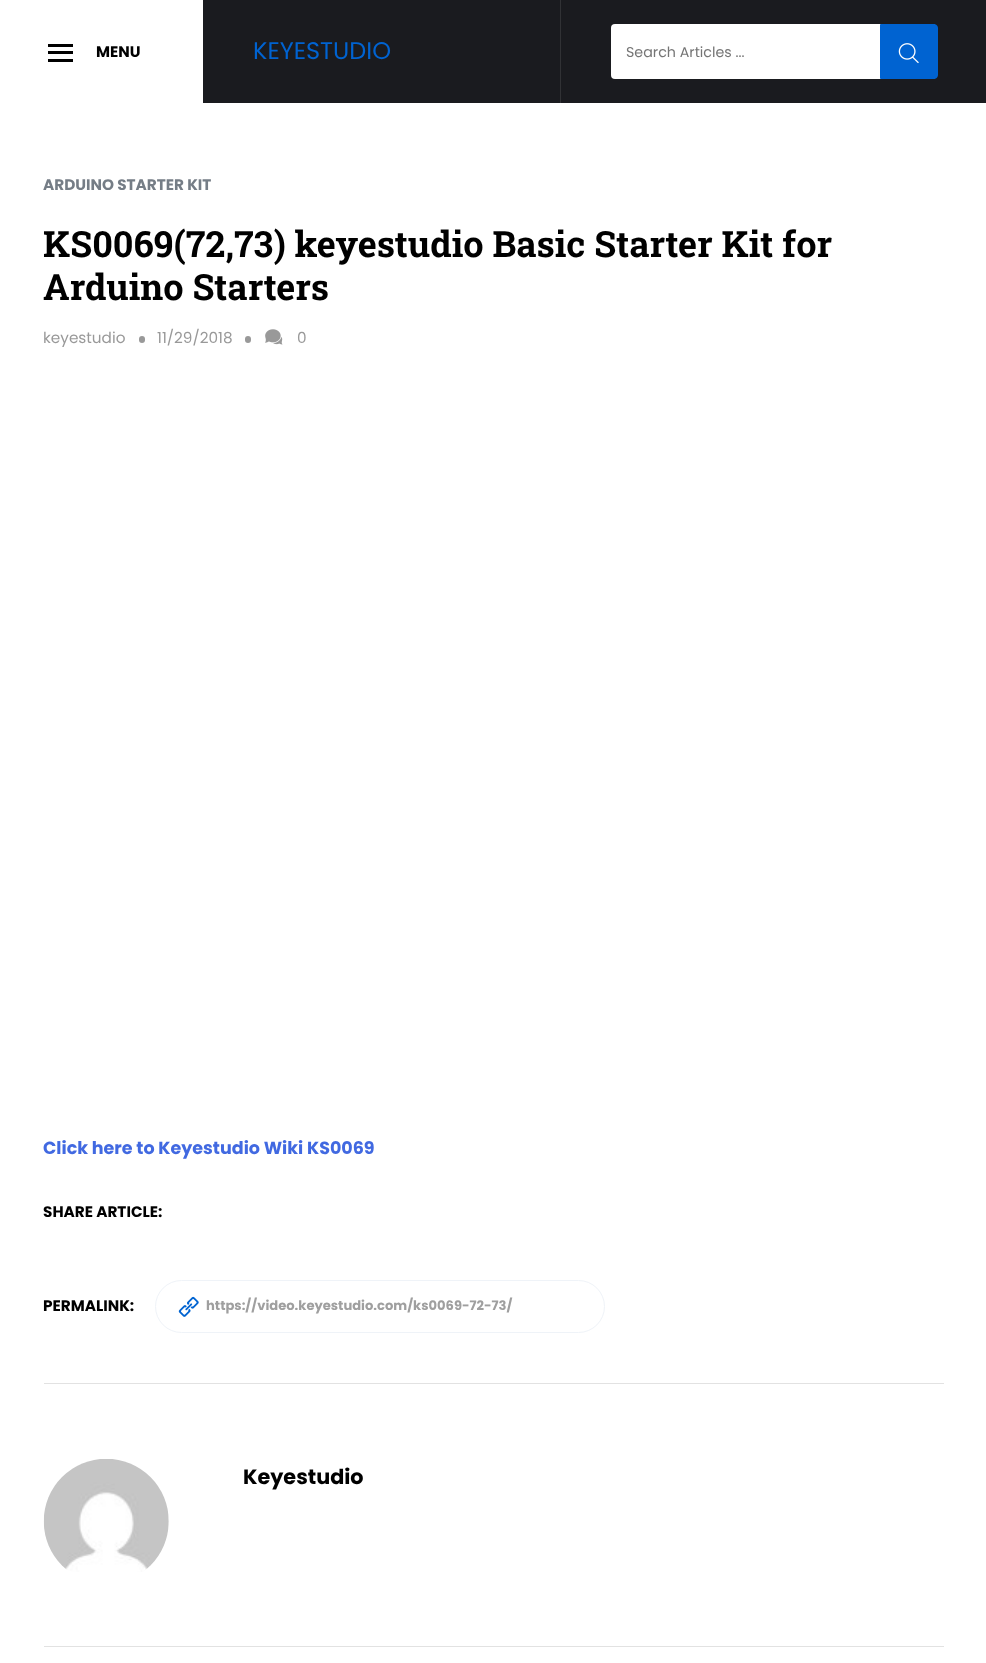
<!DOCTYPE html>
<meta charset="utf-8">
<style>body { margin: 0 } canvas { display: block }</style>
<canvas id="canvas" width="986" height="1663"></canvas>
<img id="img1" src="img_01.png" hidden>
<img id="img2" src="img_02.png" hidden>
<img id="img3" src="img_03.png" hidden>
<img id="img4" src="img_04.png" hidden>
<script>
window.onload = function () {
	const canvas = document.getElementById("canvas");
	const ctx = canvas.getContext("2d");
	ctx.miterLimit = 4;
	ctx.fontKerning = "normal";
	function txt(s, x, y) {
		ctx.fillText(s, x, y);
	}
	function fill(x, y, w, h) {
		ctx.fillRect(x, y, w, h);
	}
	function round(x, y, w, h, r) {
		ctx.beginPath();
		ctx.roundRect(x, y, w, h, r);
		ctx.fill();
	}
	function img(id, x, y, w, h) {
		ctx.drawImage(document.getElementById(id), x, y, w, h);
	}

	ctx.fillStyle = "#FFFFFF";
	fill(0, 0, 986, 1663);
	ctx.fillStyle = "#1A1B1F";
	fill(203, 0, 783, 103);
	ctx.fillStyle = "#000000";
	fill(48, 59, 25, 3);
	fill(48, 51, 25, 3);
	fill(48, 44, 25, 3);
	ctx.fillStyle = "#313235";
	fill(560, 0, 1, 103);
	ctx.fillStyle = "#FFFFFF";
	round(611, 24, 325, 55, 4);
	ctx.fillStyle = "#0063D1";
	ctx.beginPath();
	ctx.roundRect(880.5, 24.5, 57, 54, [0, 3.5, 3.5, 0]);
	ctx.fill();
	ctx.strokeStyle = "#0063D1";
	ctx.stroke();
	img("img1", 898, 43, 21, 21);
	ctx.fillStyle = "#999999";
	round(139, 336, 6, 7, 3);
	round(245, 336, 6, 7, 3);
	img("img2", 265, 329, 18, 16);
	ctx.fillStyle = "#E2E2E2";
	fill(44, 1383, 900, 1);
	ctx.beginPath();
	ctx.roundRect(155.5, 1280.5, 449, 52, 26);
	ctx.strokeStyle = "#EFF3F8";
	ctx.stroke();
	img("img3", 178, 1296, 21, 21);
	fill(44, 1646, 900, 1);
	img("img4", 43, 1459, 126, 113);
	ctx.font = "bold 15.25px Poppins";
	ctx.fillStyle = "#000000";
	txt("MENU", 96, 57);
	ctx.font = "24px Poppins";
	ctx.fillStyle = "#0063D1";
	txt("KEYESTUDIO", 253, 59);
	ctx.font = "14.25px Poppins";
	ctx.fillStyle = "#757575";
	txt("Search Articles ...", 626, 57);
	ctx.font = "bold 15.25px Poppins";
	ctx.fillStyle = "#757D86";
	txt("ARDUINO STARTER KIT", 43, 190);
	ctx.font = "bold 36.1px Roboto Slab";
	ctx.fillStyle = "#000000";
	txt("KS0069(72,73) keyestudio Basic Starter Kit for", 43, 257);
	txt("Arduino Starters", 43, 300);
	ctx.font = "15.25px Poppins";
	ctx.fillStyle = "#999999";
	txt("keyestudio", 43, 343);
	txt("11/29/2018", 157, 343);
	txt("0", 297, 343);
	ctx.font = "bold 17.5px Poppins";
	ctx.fillStyle = "#4169E1";
	txt("Click here to Keyestudio Wiki KS0069", 43, 1154);
	ctx.font = "bold 15.25px Poppins";
	ctx.fillStyle = "#000000";
	txt("SHARE ARTICLE:", 43, 1217);
	txt("PERMALINK:", 43, 1311);
	ctx.font = "bold 13.1px Poppins";
	ctx.fillStyle = "#9F9F9F";
	txt("https://video.keyestudio.com/ks0069-72-73/", 206, 1310);
	ctx.font = "bold 20.75px Poppins";
	ctx.fillStyle = "#000000";
	txt("Keyestudio", 243, 1484);
};
</script>
